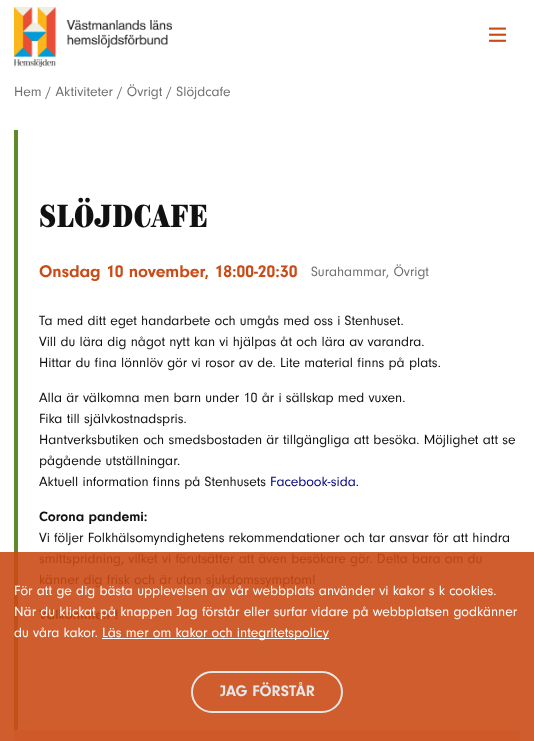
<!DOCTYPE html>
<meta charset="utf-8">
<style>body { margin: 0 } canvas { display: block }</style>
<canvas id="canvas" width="534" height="741"></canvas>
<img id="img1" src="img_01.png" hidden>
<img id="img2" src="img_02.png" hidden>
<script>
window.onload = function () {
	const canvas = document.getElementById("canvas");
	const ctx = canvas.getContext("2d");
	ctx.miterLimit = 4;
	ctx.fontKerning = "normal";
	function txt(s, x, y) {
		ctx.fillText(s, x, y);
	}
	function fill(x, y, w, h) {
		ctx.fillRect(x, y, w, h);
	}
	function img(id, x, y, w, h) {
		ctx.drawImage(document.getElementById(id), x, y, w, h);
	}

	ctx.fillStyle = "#FFFFFF";
	fill(0, 0, 534, 741);
	ctx.fillStyle = "#D05D2D";
	fill(0, 552, 534, 189);
	img("img1", 14, 7, 158, 60);
	img("img2", 489, 27, 17, 15);
	ctx.fillStyle = "#608A29";
	fill(14, 130, 4, 422);
	ctx.fillStyle = "#C05118";
	fill(14, 552, 4, 178);
	ctx.fillStyle = "#CF5929";
	fill(14, 730, 506, 11);
	ctx.fillStyle = "#FFFFFF";
	fill(102, 638, 227, 1);
	ctx.beginPath();
	ctx.roundRect(192, 672, 150, 40, 20);
	ctx.strokeStyle = "#E7E7E7";
	ctx.lineWidth = 2;
	ctx.stroke();
	ctx.font = "14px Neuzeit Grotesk";
	ctx.fillStyle = "#707070";
	txt("Hem / Aktiviteter / Övrigt / Slöjdcafe", 14, 96);
	ctx.font = "27.25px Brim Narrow";
	ctx.fillStyle = "#111111";
	txt("Slöjdcafe", 39, 227);
	ctx.font = "bold 17.5px Neuzeit Grotesk";
	ctx.fillStyle = "#CB4B16";
	txt("Onsdag 10 november, 18:00-20:30", 39, 277);
	ctx.font = "14px Neuzeit Grotesk";
	ctx.fillStyle = "#707070";
	txt("Surahammar", 311, 276);
	txt(", Övrigt", 386, 276);
	ctx.fillStyle = "#111111";
	txt("Ta med ditt eget handarbete och umgås med oss i Stenhuset.", 39, 325);
	txt("Vill du lära dig något nytt kan vi hjälpas åt och lära av varandra.", 39, 346);
	txt("Hittar du fina lönnlöv gör vi rosor av de. Lite material finns på plats.", 39, 367);
	txt("Alla är välkomna men barn under 10 år i sällskap med vuxen.", 39, 402);
	txt("Fika till självkostnadspris.", 39, 423);
	txt("Hantverksbutiken och smedsbostaden är tillgängliga att besöka. Möjlighet att se", 39, 444);
	txt("pågående utställningar.", 39, 465);
	txt("Aktuell information finns på Stenhusets", 39, 486);
	ctx.fillStyle = "#000080";
	txt("Facebook-sida.", 270, 486);
	ctx.font = "bold 14px Neuzeit Grotesk";
	ctx.fillStyle = "#111111";
	txt("Corona pandemi:", 39, 521);
	ctx.font = "14px Neuzeit Grotesk";
	txt("Vi följer Folkhälsomyndighetens rekommendationer och tar ansvar för att hindra", 39, 542);
	ctx.fillStyle = "#B84516";
	txt("smittspridning, vilket vi förutsätter att även besökare gör. Delta bara om du", 39, 563);
	txt("känner dig frisk och är utan sjukdomssymptom!", 39, 584);
	ctx.font = "bold 14px Neuzeit Grotesk";
	txt("Välkommen !", 39, 619);
	ctx.font = "14px Neuzeit Grotesk";
	ctx.fillStyle = "#FFFFFF";
	txt("För att ge dig bästa upplevelsen av vår webbplats använder vi kakor s k cookies.", 14, 595);
	txt("När du klickat på knappen Jag förstår eller surfar vidare på webbplatsen godkänner", 14, 616);
	txt("du våra kakor.", 14, 637);
	txt("Läs mer om kakor och integritetspolicy", 102, 637);
	ctx.font = "bold 15.75px Neuzeit Grotesk";
	ctx.fillStyle = "#E7E7E7";
	txt("JAG FÖRSTÅR", 220, 696);
};
</script>
